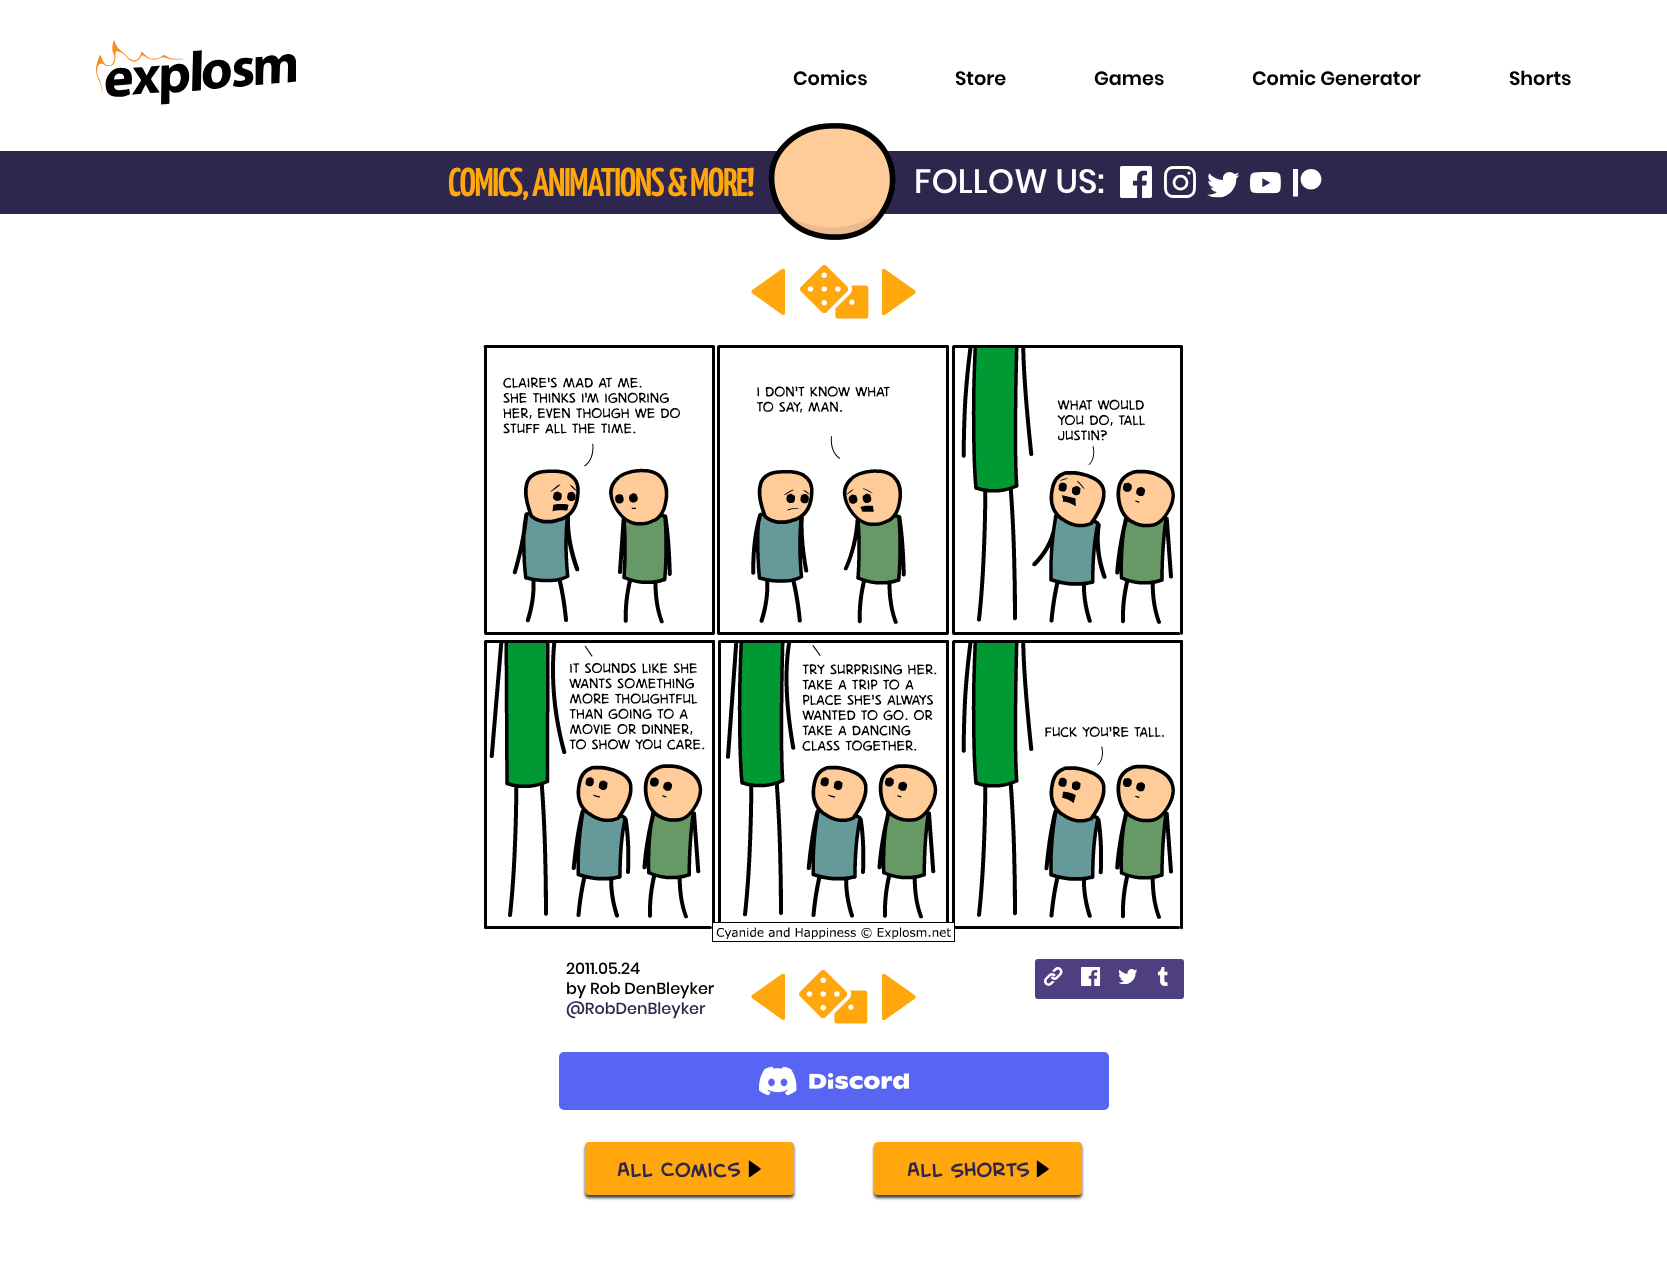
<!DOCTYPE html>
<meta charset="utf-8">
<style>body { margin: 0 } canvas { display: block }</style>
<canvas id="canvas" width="1667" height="1265"></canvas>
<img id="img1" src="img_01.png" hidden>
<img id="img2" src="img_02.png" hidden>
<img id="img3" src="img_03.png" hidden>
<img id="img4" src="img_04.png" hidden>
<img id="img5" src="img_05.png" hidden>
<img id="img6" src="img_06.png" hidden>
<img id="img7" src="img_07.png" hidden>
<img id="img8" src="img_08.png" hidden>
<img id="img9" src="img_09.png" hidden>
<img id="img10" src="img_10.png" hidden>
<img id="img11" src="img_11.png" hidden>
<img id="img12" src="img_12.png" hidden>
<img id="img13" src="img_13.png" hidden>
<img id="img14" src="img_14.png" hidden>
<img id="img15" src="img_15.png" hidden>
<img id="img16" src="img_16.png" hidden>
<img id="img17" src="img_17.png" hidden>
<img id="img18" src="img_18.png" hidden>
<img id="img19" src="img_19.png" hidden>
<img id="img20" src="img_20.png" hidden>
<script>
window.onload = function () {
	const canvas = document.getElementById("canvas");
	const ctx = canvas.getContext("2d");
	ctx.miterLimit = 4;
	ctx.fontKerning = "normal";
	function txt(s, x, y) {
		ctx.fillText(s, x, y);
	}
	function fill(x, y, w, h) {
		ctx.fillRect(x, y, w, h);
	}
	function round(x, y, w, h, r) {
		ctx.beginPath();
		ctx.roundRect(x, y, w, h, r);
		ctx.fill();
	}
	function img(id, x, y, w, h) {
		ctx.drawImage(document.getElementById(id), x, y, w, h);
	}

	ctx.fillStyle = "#FFFFFF";
	fill(0, 0, 1667, 1265);
	img("img1", 96, 40, 200, 65);
	ctx.fillStyle = "#2F264D";
	fill(0, 151, 1667, 63);
	img("img2", 768, 123, 128, 117);
	img("img3", 1120, 166, 32, 32);
	img("img4", 1164, 166, 32, 32);
	img("img5", 1207, 172, 32, 26);
	img("img6", 1250, 172, 31, 22);
	img("img7", 1293, 169, 29, 28);
	img("img8", 751, 268, 34, 47);
	img("img9", 800, 265, 69, 54);
	img("img10", 882, 269, 34, 46);
	img("img11", 483, 345, 700, 597);
	img("img12", 751, 973, 34, 47);
	img("img13", 799, 970, 69, 54);
	img("img14", 882, 974, 34, 46);
	ctx.fillStyle = "#4E3F80";
	round(1035, 959, 149, 40, 3);
	img("img15", 1044, 967, 19, 19);
	img("img16", 1081, 967, 20, 19);
	img("img17", 1118, 969, 19, 15);
	img("img18", 1157, 967, 11, 19);
	ctx.fillStyle = "#5865F2";
	round(559, 1052, 550, 58, 5);
	img("img19", 759, 1066, 150, 30);
	ctx.fillStyle = "rgba(0, 0, 0, 0.75)";
	ctx.filter = "blur(1.5px)";
	ctx.beginPath();
	ctx.roundRect(585, 1145, 209, 53, 4);
	ctx.fill();
	ctx.filter = "none";
	ctx.fillStyle = "#FFA70D";
	round(585, 1142, 209, 53, 4);
	img("img20", 748, 1160, 13, 17);
	ctx.fillStyle = "rgba(0, 0, 0, 0.75)";
	ctx.filter = "blur(1.5px)";
	ctx.beginPath();
	ctx.roundRect(874, 1145, 208, 53, 4);
	ctx.fill();
	ctx.filter = "none";
	ctx.fillStyle = "#FFA70D";
	round(874, 1142, 208, 53, 4);
	img("img20", 1036, 1160, 13, 17);
	ctx.font = "600 19.25px Poppins";
	ctx.fillStyle = "#000000";
	txt("Comics", 793, 85);
	txt("Store", 955, 85);
	txt("Games", 1094, 85);
	txt("Comic Generator", 1252, 85);
	txt("Shorts", 1509, 85);
	ctx.letterSpacing = "-1.5px";
	ctx.font = "200 40px Yanone Kaffeesatz";
	ctx.fillStyle = "#FFA70D";
	txt("COMICS, ANIMATIONS & MORE!", 448, 196);
	ctx.letterSpacing = "0px";
	ctx.font = "500 33.5px Poppins";
	ctx.fillStyle = "#FFFFFF";
	txt("FOLLOW US:", 914, 193);
	ctx.font = "500 16px Poppins";
	ctx.fillStyle = "#000000";
	txt("2011.05.24", 566, 974);
	txt("by Rob DenBleyker", 566, 994);
	ctx.fillStyle = "#2F264D";
	txt("@RobDenBleyker", 566, 1014);
	ctx.font = "22.5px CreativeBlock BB";
	txt("All Comics", 617, 1177);
	txt("All Shorts", 907, 1177);
};
</script>
